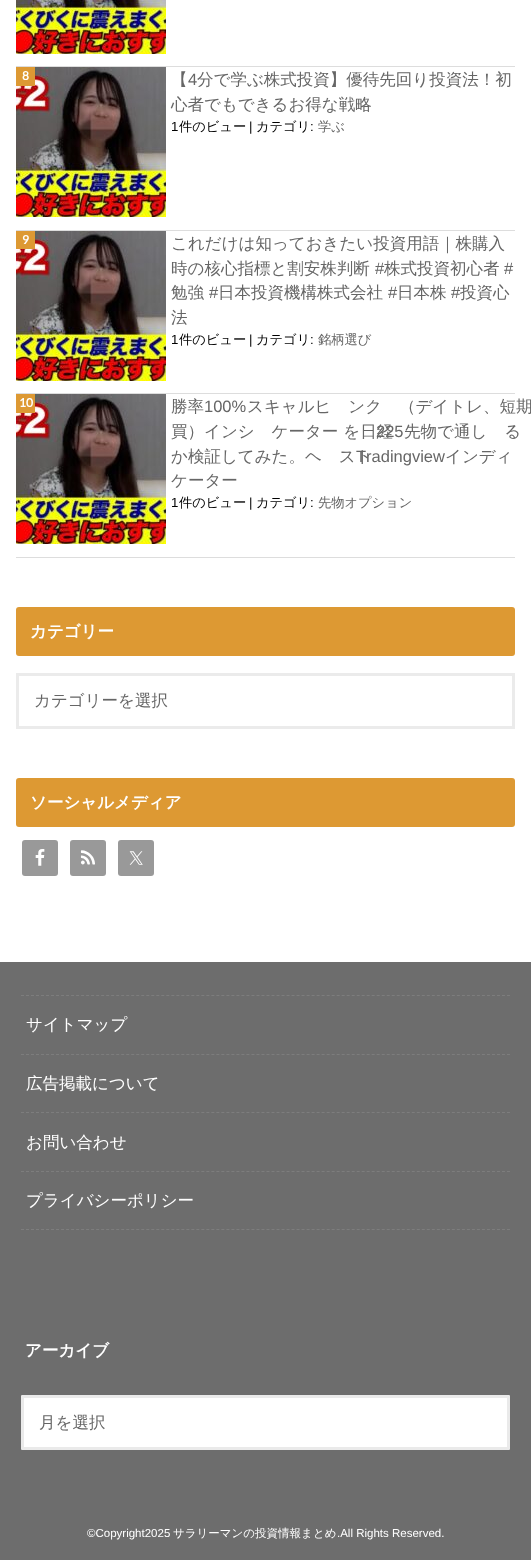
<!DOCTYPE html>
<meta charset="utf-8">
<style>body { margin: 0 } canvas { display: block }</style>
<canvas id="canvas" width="531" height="1560"></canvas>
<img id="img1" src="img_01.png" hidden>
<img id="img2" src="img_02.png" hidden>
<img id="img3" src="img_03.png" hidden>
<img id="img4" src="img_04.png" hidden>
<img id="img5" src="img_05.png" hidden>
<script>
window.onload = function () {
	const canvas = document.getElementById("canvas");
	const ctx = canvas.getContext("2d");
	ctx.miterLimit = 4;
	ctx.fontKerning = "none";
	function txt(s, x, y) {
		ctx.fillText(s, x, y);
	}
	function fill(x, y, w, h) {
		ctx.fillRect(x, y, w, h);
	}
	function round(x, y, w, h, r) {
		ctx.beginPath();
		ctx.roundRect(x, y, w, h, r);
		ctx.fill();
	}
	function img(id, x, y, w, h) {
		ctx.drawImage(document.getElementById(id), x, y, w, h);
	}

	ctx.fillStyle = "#FFFFFF";
	fill(0, 0, 531, 1560);
	ctx.fillStyle = "#DDDDDD";
	fill(16, 66, 499, 1);
	img("img1", 16, 0, 150, 54);
	fill(16, 230, 499, 1);
	img("img2", 16, 67, 150, 150);
	ctx.fillStyle = "#DD9933";
	fill(16, 67, 19, 19);
	ctx.fillStyle = "#DDDDDD";
	fill(16, 393, 499, 1);
	img("img2", 16, 231, 150, 150);
	ctx.fillStyle = "#DD9933";
	fill(16, 231, 19, 18);
	ctx.fillStyle = "#DDDDDD";
	fill(16, 557, 499, 1);
	img("img2", 16, 394, 150, 150);
	ctx.fillStyle = "#DD9933";
	fill(16, 394, 19, 19);
	round(16, 607, 499, 49, 3);
	ctx.beginPath();
	ctx.moveTo(17.5, 674.5);
	ctx.lineTo(513.5, 674.5);
	ctx.lineTo(513.5, 727.5);
	ctx.lineTo(17.5, 727.5);
	ctx.closePath();
	ctx.strokeStyle = "#EBEBEB";
	ctx.lineWidth = 3;
	ctx.stroke();
	round(16, 778, 499, 49, 3);
	ctx.fillStyle = "#999999";
	round(22, 840, 36, 36, 3);
	img("img3", 35, 849, 10, 17);
	round(70, 840, 36, 36, 3);
	img("img4", 80, 850, 15, 15);
	round(118, 840, 36, 36, 3);
	img("img5", 129, 851, 14, 14);
	ctx.fillStyle = "#6D6D6D";
	fill(0, 962, 531, 598);
	ctx.beginPath();
	ctx.moveTo(21, 995.5);
	ctx.lineTo(510, 995.5);
	ctx.strokeStyle = "#7D7D7D";
	ctx.lineWidth = 1;
	ctx.setLineDash([3, 2.01]);
	ctx.stroke();
	ctx.beginPath();
	ctx.moveTo(21, 1054.5);
	ctx.lineTo(510, 1054.5);
	ctx.stroke();
	ctx.beginPath();
	ctx.moveTo(21, 1112.5);
	ctx.lineTo(510, 1112.5);
	ctx.stroke();
	ctx.beginPath();
	ctx.moveTo(21, 1171.5);
	ctx.lineTo(510, 1171.5);
	ctx.stroke();
	ctx.beginPath();
	ctx.moveTo(21, 1229.5);
	ctx.lineTo(510, 1229.5);
	ctx.stroke();
	ctx.fillStyle = "#FFFFFF";
	round(21, 1395, 489, 55, 1);
	ctx.beginPath();
	ctx.moveTo(22.5, 1396.5);
	ctx.lineTo(508.5, 1396.5);
	ctx.lineTo(508.5, 1448.5);
	ctx.lineTo(22.5, 1448.5);
	ctx.closePath();
	ctx.strokeStyle = "rgba(51, 51, 51, 0.1)";
	ctx.lineWidth = 3;
	ctx.setLineDash([]);
	ctx.stroke();
	ctx.font = "bold 12px Lato";
	txt("8", 22, 80);
	ctx.font = "500 16.5px WenQuanYi Zen Hei";
	ctx.fillStyle = "#666666";
	txt("【", 171, 85);
	ctx.font = "16.5px Liberation Sans";
	txt("4", 188, 85);
	ctx.font = "500 16.5px WenQuanYi Zen Hei";
	txt("分で学ぶ株式投資】優待先回り投資法！初", 197, 85);
	txt("心者でもできるお得な戦略", 171, 110);
	ctx.font = "13.25px Liberation Sans";
	ctx.fillStyle = "#000000";
	txt("1", 171, 131);
	ctx.font = "500 13.25px WenQuanYi Zen Hei";
	txt("件のビュー", 179, 131);
	ctx.font = "13.25px Liberation Sans";
	txt("|", 249, 131);
	ctx.font = "500 13.25px WenQuanYi Zen Hei";
	txt("カテゴリ", 256, 131);
	ctx.font = "13.25px Liberation Sans";
	txt(":", 310, 131);
	ctx.font = "500 13.25px WenQuanYi Zen Hei";
	ctx.fillStyle = "#666666";
	txt("学ぶ", 318, 131);
	ctx.font = "bold 12px Lato";
	ctx.fillStyle = "#FFFFFF";
	txt("9", 22, 244);
	ctx.font = "500 16.5px WenQuanYi Zen Hei";
	ctx.fillStyle = "#666666";
	txt("これだけは知っておきたい投資用語｜株購入", 171, 249);
	txt("時の核心指標と割安株判断", 171, 274);
	ctx.font = "16.5px Liberation Sans";
	txt("#", 375, 274);
	ctx.font = "500 16.5px WenQuanYi Zen Hei";
	txt("株式投資初心者", 384, 274);
	ctx.font = "16.5px Liberation Sans";
	txt("#", 504, 274);
	ctx.font = "500 16.5px WenQuanYi Zen Hei";
	txt("勉強", 171, 298);
	ctx.font = "16.5px Liberation Sans";
	txt("#", 209, 298);
	ctx.font = "500 16.5px WenQuanYi Zen Hei";
	txt("日本投資機構株式会社", 218, 298);
	ctx.font = "16.5px Liberation Sans";
	txt("#", 388, 298);
	ctx.font = "500 16.5px WenQuanYi Zen Hei";
	txt("日本株", 397, 298);
	ctx.font = "16.5px Liberation Sans";
	txt("#", 451, 298);
	ctx.font = "500 16.5px WenQuanYi Zen Hei";
	txt("投資心", 460, 298);
	txt("法", 171, 323);
	ctx.font = "13.25px Liberation Sans";
	ctx.fillStyle = "#000000";
	txt("1", 171, 344);
	ctx.font = "500 13.25px WenQuanYi Zen Hei";
	txt("件のビュー", 179, 344);
	ctx.font = "13.25px Liberation Sans";
	txt("|", 249, 344);
	ctx.font = "500 13.25px WenQuanYi Zen Hei";
	txt("カテゴリ", 256, 344);
	ctx.font = "13.25px Liberation Sans";
	txt(":", 310, 344);
	ctx.font = "500 13.25px WenQuanYi Zen Hei";
	ctx.fillStyle = "#666666";
	txt("銘柄選び", 318, 344);
	ctx.font = "bold 12px Lato";
	ctx.fillStyle = "#FFFFFF";
	txt("10", 19, 407);
	ctx.font = "500 16.5px WenQuanYi Zen Hei";
	ctx.fillStyle = "#666666";
	txt("勝率", 171, 412);
	ctx.font = "16.5px Liberation Sans";
	txt("100%", 204, 412);
	ctx.font = "500 16.5px WenQuanYi Zen Hei";
	txt("スキャルピング（デイトレ、短期売", 247, 412);
	txt("買）インジケーター を日経", 171, 437);
	ctx.font = "16.5px Liberation Sans";
	txt("225", 376, 437);
	ctx.font = "500 16.5px WenQuanYi Zen Hei";
	txt("先物で通じる", 404, 437);
	txt("か検証してみた。ベスト", 171, 462);
	ctx.font = "16.5px Liberation Sans";
	txt("Tradingview", 356, 462);
	ctx.font = "500 16.5px WenQuanYi Zen Hei";
	txt("インディ", 445, 462);
	txt("ケーター", 171, 486);
	ctx.font = "13.25px Liberation Sans";
	ctx.fillStyle = "#000000";
	txt("1", 171, 507);
	ctx.font = "500 13.25px WenQuanYi Zen Hei";
	txt("件のビュー", 179, 507);
	ctx.font = "13.25px Liberation Sans";
	txt("|", 249, 507);
	ctx.font = "500 13.25px WenQuanYi Zen Hei";
	txt("カテゴリ", 256, 507);
	ctx.font = "13.25px Liberation Sans";
	txt(":", 310, 507);
	ctx.font = "500 13.25px WenQuanYi Zen Hei";
	ctx.fillStyle = "#666666";
	txt("先物オプション", 318, 507);
	ctx.font = "bold 16.5px WenQuanYi Zen Hei";
	ctx.fillStyle = "#FFFFFF";
	txt("カテゴリー", 30, 637);
	ctx.font = "500 16.5px WenQuanYi Zen Hei";
	ctx.fillStyle = "#666666";
	txt("カテゴリーを選択", 34, 706);
	ctx.font = "bold 16.5px WenQuanYi Zen Hei";
	ctx.fillStyle = "#FFFFFF";
	txt("ソーシャルメディア", 30, 808);
	ctx.font = "500 16.5px WenQuanYi Zen Hei";
	txt("サイトマップ", 26, 1030);
	txt("広告掲載について", 26, 1089);
	txt("お問い合わせ", 26, 1148);
	txt("プライバシーポリシー", 26, 1206);
	ctx.font = "bold 16.5px WenQuanYi Zen Hei";
	txt("アーカイブ", 25, 1356);
	ctx.font = "500 16.5px WenQuanYi Zen Hei";
	ctx.fillStyle = "#666666";
	txt("月を選択", 39, 1428);
	ctx.font = "11.5px Liberation Sans";
	ctx.fillStyle = "#FFFFFF";
	txt("©Copyright2025", 87, 1537);
	ctx.font = "500 11.5px WenQuanYi Zen Hei";
	txt("サラリーマンの投資情報まとめ", 173, 1537);
	ctx.font = "11.5px Liberation Sans";
	txt(".All Rights Reserved.", 337, 1537);
};
</script>
